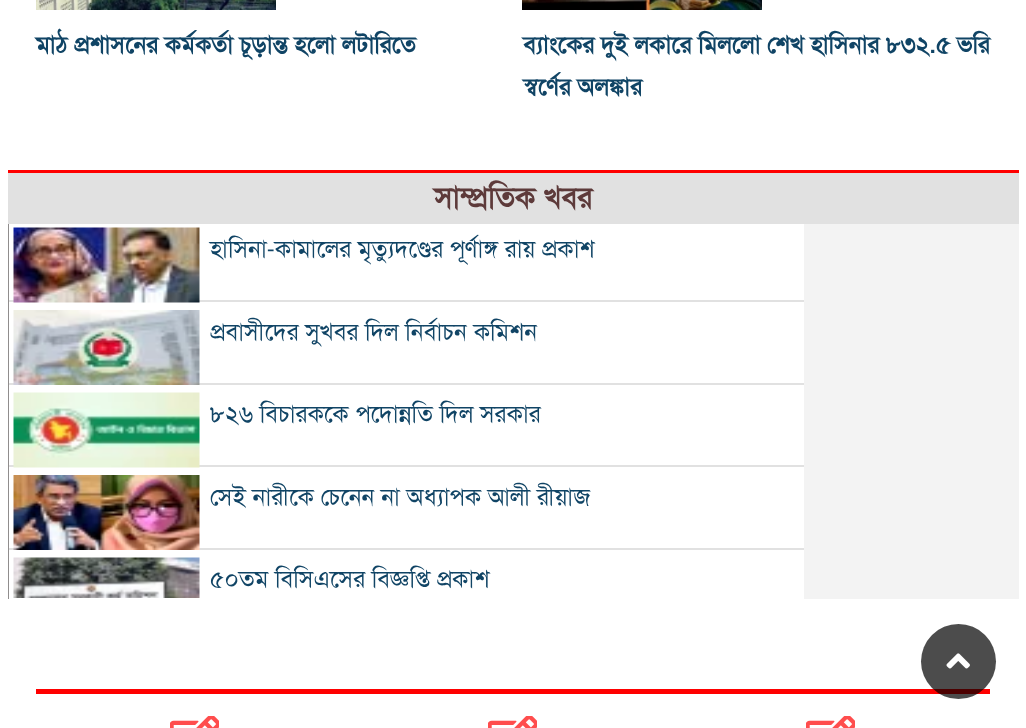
<!DOCTYPE html>
<meta charset="utf-8">
<style>body { margin: 0 } canvas { display: block }</style>
<canvas id="canvas" width="1026" height="728"></canvas>
<img id="img1" src="img_01.png" hidden>
<img id="img2" src="img_02.png" hidden>
<img id="img3" src="img_03.png" hidden>
<img id="img4" src="img_04.png" hidden>
<img id="img5" src="img_05.png" hidden>
<img id="img6" src="img_06.png" hidden>
<img id="img7" src="img_07.png" hidden>
<img id="img8" src="img_08.png" hidden>
<img id="img9" src="img_09.png" hidden>
<script>
window.onload = function () {
	const canvas = document.getElementById("canvas");
	const ctx = canvas.getContext("2d");
	ctx.miterLimit = 4;
	ctx.fontKerning = "normal";
	function txt(s, x, y) {
		ctx.fillText(s, x, y);
	}
	function fill(x, y, w, h) {
		ctx.fillRect(x, y, w, h);
	}
	function img(id, x, y, w, h) {
		ctx.drawImage(document.getElementById(id), x, y, w, h);
	}

	ctx.fillStyle = "#FFFFFF";
	fill(0, 0, 1026, 728);
	img("img1", 36, 0, 240, 10);
	img("img2", 522, 0, 240, 10);
	ctx.fillStyle = "#E1E1E1";
	fill(8, 173, 1011, 51);
	ctx.fillStyle = "#FF0000";
	fill(8, 170, 1011, 3);
	ctx.fillStyle = "#F3F3F3";
	fill(804, 224, 215, 375);
	ctx.fillStyle = "#908D8D";
	fill(8, 224, 1, 375);
	ctx.fillStyle = "#E1E1E1";
	fill(9, 300, 795, 2);
	img("img3", 13, 227, 187, 76);
	fill(9, 383, 795, 2);
	img("img4", 13, 310, 187, 75);
	fill(9, 465, 795, 2);
	img("img5", 13, 392, 187, 76);
	fill(9, 548, 795, 2);
	img("img6", 13, 475, 187, 75);
	img("img7", 13, 557, 187, 41);
	ctx.fillStyle = "#FF0000";
	fill(36, 689, 954, 5);
	ctx.fillStyle = "rgba(0, 0, 0, 0.7)";
	ctx.beginPath();
	ctx.arc(958.5, 661.5, 37.5, 0, Math.PI * 2);
	ctx.fill();
	img("img8", 946, 653, 24, 16);
	img("img9", 170, 716, 49, 12);
	img("img9", 488, 716, 49, 12);
	img("img9", 806, 716, 49, 12);
	ctx.font = "bold 24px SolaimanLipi";
	ctx.fillStyle = "#104465";
	txt("মাঠ প্রশাসনের কর্মকর্তা চূড়ান্ত হলো লটারিতে", 36, 53);
	txt("ব্যাংকের দুই লকারে মিললো শেখ হাসিনার ৮৩২.৫ ভরি", 523, 53);
	txt("স্বর্ণের অলঙ্কার", 523, 95);
	ctx.font = "bold 30px SolaimanLipi";
	ctx.fillStyle = "#5D3A3A";
	txt("সাম্প্রতিক খবর", 434, 208);
	ctx.font = "24px SolaimanLipi";
	ctx.fillStyle = "#104465";
	txt("হাসিনা-কামালের মৃত্যুদণ্ডের পূর্ণাঙ্গ রায় প্রকাশ", 210, 257);
	txt("প্রবাসীদের সুখবর দিল নির্বাচন কমিশন", 210, 340);
	txt("৮২৬ বিচারককে পদোন্নতি দিল সরকার", 210, 422);
	txt("সেই নারীকে চেনেন না অধ্যাপক আলী রীয়াজ", 210, 505);
	txt("৫০তম বিসিএসের বিজ্ঞপ্তি প্রকাশ", 210, 587);
};
</script>
